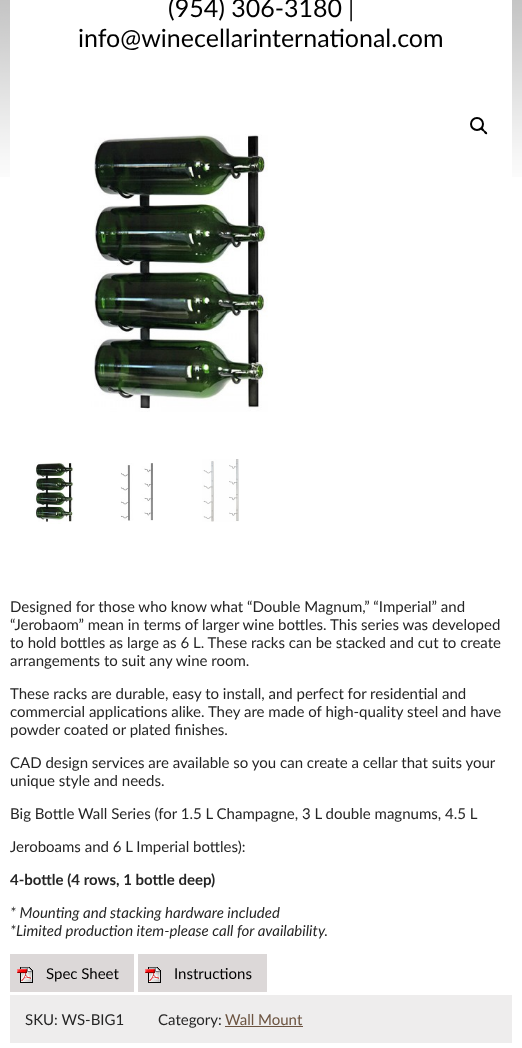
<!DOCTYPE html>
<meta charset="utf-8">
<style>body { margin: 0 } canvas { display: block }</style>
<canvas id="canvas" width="522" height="1048"></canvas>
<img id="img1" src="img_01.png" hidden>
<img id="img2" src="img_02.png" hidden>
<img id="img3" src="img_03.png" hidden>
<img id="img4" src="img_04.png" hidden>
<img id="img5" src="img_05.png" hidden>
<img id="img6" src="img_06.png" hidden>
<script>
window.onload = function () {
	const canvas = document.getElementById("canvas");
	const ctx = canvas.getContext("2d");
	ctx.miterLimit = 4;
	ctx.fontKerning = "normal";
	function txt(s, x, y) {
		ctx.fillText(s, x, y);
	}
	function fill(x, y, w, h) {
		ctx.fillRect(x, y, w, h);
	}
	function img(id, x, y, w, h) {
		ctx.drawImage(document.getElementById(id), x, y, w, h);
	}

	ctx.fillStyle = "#FFFFFF";
	fill(0, 0, 522, 1048);
	img("img1", 0, 0, 522, 177);
	fill(10, 0, 502, 177);
	ctx.beginPath();
	ctx.arc(477, 124, 6, 0, Math.PI * 2);
	ctx.strokeStyle = "#000000";
	ctx.lineWidth = 2;
	ctx.stroke();
	ctx.fillStyle = "#000000";
	ctx.beginPath();
	ctx.moveTo(481, 128);
	ctx.bezierCurveTo(482.5, 127, 484, 129.5, 484.5, 130.5);
	ctx.bezierCurveTo(485.5, 131, 488, 132.5, 487, 134);
	ctx.bezierCurveTo(485.5, 135, 484, 132.5, 483.5, 131.5);
	ctx.bezierCurveTo(482.5, 131, 480, 129.5, 481, 128);
	ctx.closePath();
	ctx.fill();
	img("img2", 91, 134, 177, 278);
	img("img3", 34, 462, 40, 62);
	img("img4", 120, 463, 33, 58);
	img("img5", 202, 459, 37, 63);
	ctx.fillStyle = "#DCD8D8";
	fill(10, 954, 124, 38);
	img("img6", 17, 967, 16, 16);
	fill(138, 954, 129, 38);
	img("img6", 145, 967, 16, 16);
	ctx.fillStyle = "#EEEDED";
	fill(10, 995, 502, 48);
	ctx.fillStyle = "#6C5441";
	fill(225, 1026, 78, 1);
	ctx.font = "25px Lato";
	ctx.fillStyle = "#000000";
	txt("(954) 306-3180", 168, 17);
	ctx.fillStyle = "#252525";
	txt("|", 348, 17);
	ctx.fillStyle = "#000000";
	txt("info@winecellarinternational.com", 78, 47);
	ctx.font = "15px Lato";
	ctx.fillStyle = "#252525";
	txt("Designed for those who know what “Double Magnum,” “Imperial” and", 10, 612);
	txt("“Jerobaom” mean in terms of larger wine bottles. This series was developed", 10, 630);
	txt("to hold bottles as large as 6 L. These racks can be stacked and cut to create", 10, 648);
	txt("arrangements to suit any wine room.", 10, 666);
	txt("These racks are durable, easy to install, and perfect for residential and", 10, 699);
	txt("commercial applications alike. They are made of high-quality steel and have", 10, 717);
	txt("powder coated or plated finishes.", 10, 735);
	txt("CAD design services are available so you can create a cellar that suits your", 10, 768);
	txt("unique style and needs.", 10, 786);
	txt("Big Bottle Wall Series (for 1.5 L Champagne, 3 L double magnums, 4.5 L", 10, 819);
	txt("Jeroboams and 6 L Imperial bottles):", 10, 852);
	ctx.font = "bold 15px Lato";
	txt("4-bottle (4 rows, 1 bottle deep)", 10, 885);
	ctx.font = "italic 15px Lato";
	txt("* Mounting and stacking hardware included", 10, 918);
	txt("*Limited production item-please call for availability.", 10, 936);
	ctx.font = "15px Lato";
	ctx.fillStyle = "#000000";
	txt("Spec Sheet", 46, 979);
	txt("Instructions", 174, 979);
	ctx.fillStyle = "#252525";
	txt("SKU: WS-BIG1", 25, 1025);
	txt("Category:", 158, 1025);
	ctx.fillStyle = "#6C5441";
	txt("Wall Mount", 225, 1025);
};
</script>
